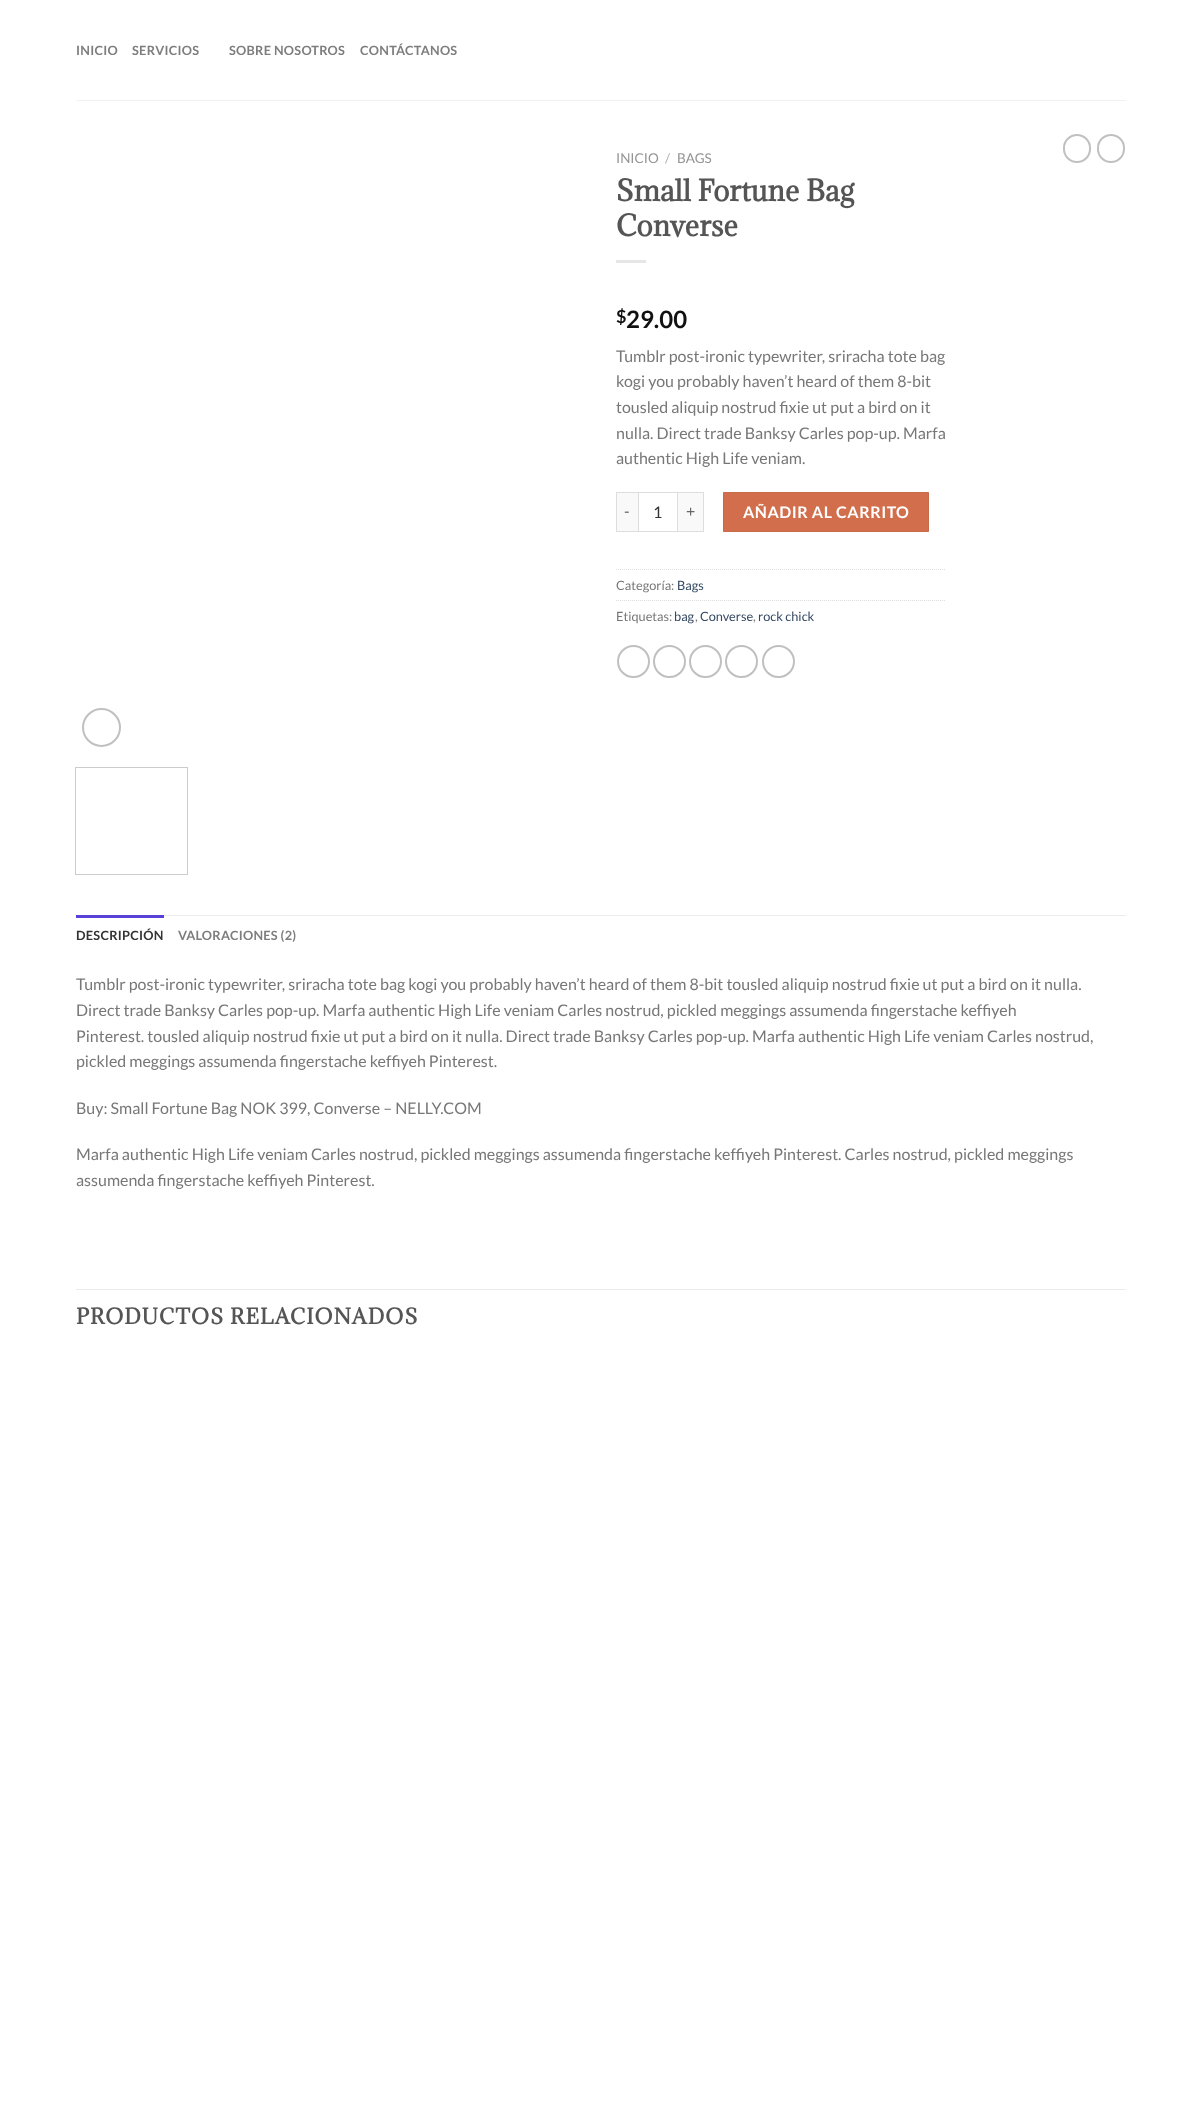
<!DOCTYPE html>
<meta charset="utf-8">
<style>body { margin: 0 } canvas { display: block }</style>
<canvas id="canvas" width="1201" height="2105"></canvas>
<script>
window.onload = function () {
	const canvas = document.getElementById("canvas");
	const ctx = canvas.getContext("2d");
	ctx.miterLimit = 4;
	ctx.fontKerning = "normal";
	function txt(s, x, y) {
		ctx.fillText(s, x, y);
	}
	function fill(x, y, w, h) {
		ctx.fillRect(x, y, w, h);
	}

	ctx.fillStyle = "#FFFFFF";
	fill(0, 0, 1201, 2105);
	ctx.fillStyle = "#F1F1F1";
	fill(76, 100, 1050, 1);
	ctx.beginPath();
	ctx.roundRect(1064, 135, 26, 27, 13);
	ctx.strokeStyle = "#C0C0C0";
	ctx.lineWidth = 2;
	ctx.stroke();
	ctx.beginPath();
	ctx.roundRect(1098, 135, 26, 27, 13);
	ctx.stroke();
	ctx.fillStyle = "#E6E6E6";
	fill(616, 260, 30, 3);
	ctx.fillStyle = "#F9F9F9";
	fill(617, 493, 21, 38);
	ctx.fillStyle = "#DDDDDD";
	fill(616, 492, 22, 1);
	fill(616, 531, 22, 1);
	fill(616, 492, 1, 40);
	ctx.strokeStyle = "#DDDDDD";
	ctx.lineWidth = 1;
	ctx.strokeRect(638.5, 492.5, 39, 39);
	ctx.fillStyle = "#F9F9F9";
	fill(678, 493, 25, 38);
	ctx.fillStyle = "#DDDDDD";
	fill(678, 492, 26, 1);
	fill(703, 492, 1, 40);
	fill(678, 531, 26, 1);
	ctx.fillStyle = "#D26E4B";
	ctx.beginPath();
	ctx.rect(723.5, 492.5, 205, 39);
	ctx.fill();
	ctx.strokeStyle = "#C86947";
	ctx.stroke();
	ctx.beginPath();
	ctx.moveTo(616, 569.5);
	ctx.lineTo(946, 569.5);
	ctx.strokeStyle = "#DDDDDD";
	ctx.setLineDash([1, 1]);
	ctx.stroke();
	ctx.beginPath();
	ctx.moveTo(616, 600.5);
	ctx.lineTo(946, 600.5);
	ctx.stroke();
	ctx.beginPath();
	ctx.arc(633.5, 661.5, 15.5, 0, Math.PI * 2);
	ctx.strokeStyle = "#C0C0C0";
	ctx.lineWidth = 2;
	ctx.setLineDash([]);
	ctx.stroke();
	ctx.beginPath();
	ctx.arc(669.5, 661.5, 15.5, 0, Math.PI * 2);
	ctx.stroke();
	ctx.beginPath();
	ctx.arc(705.5, 661.5, 15.5, 0, Math.PI * 2);
	ctx.stroke();
	ctx.beginPath();
	ctx.arc(741.5, 661.5, 15.5, 0, Math.PI * 2);
	ctx.stroke();
	ctx.beginPath();
	ctx.arc(778.5, 661.5, 15.5, 0, Math.PI * 2);
	ctx.stroke();
	ctx.beginPath();
	ctx.arc(101.5, 727.5, 18.5, 0, Math.PI * 2);
	ctx.stroke();
	ctx.strokeStyle = "#CCCCCC";
	ctx.lineWidth = 1;
	ctx.strokeRect(75.5, 767.5, 112, 107);
	ctx.fillStyle = "#ECECEC";
	fill(164, 915, 962, 1);
	ctx.fillStyle = "#5741D9";
	fill(76, 915, 88, 3);
	ctx.fillStyle = "#ECECEC";
	fill(76, 1289, 1050, 1);
	ctx.letterSpacing = "0.25px";
	ctx.font = "bold 12.75px Lato";
	ctx.fillStyle = "#7D7D7D";
	txt("INICIO", 76, 55);
	txt("SERVICIOS", 132, 55);
	txt("SOBRE NOSOTROS", 229, 55);
	txt("CONTÁCTANOS", 360, 55);
	ctx.letterSpacing = "0px";
	ctx.font = "13.5px Lato";
	ctx.fillStyle = "#949494";
	txt("INICIO", 616, 163);
	ctx.fillStyle = "#B2B2B2";
	txt("/", 665, 163);
	ctx.fillStyle = "#949494";
	txt("BAGS", 677, 163);
	ctx.font = "bold 27.25px Adamina";
	ctx.fillStyle = "#555555";
	txt("Small Fortune Bag", 616, 201);
	txt("Converse", 616, 236);
	ctx.font = "bold 18px Lato";
	ctx.fillStyle = "#111111";
	txt("$", 616, 323);
	ctx.font = "bold 24px Lato";
	txt("29.00", 626, 328);
	ctx.font = "16px Lato";
	ctx.fillStyle = "#777777";
	txt("Tumblr post-ironic typewriter, sriracha tote bag", 616, 362);
	txt("kogi you probably haven’t heard of them 8-bit", 616, 387);
	txt("tousled aliquip nostrud fixie ut put a bird on it", 616, 413);
	txt("nulla. Direct trade Banksy Carles pop-up. Marfa", 616, 439);
	txt("authentic High Life veniam.", 616, 464);
	ctx.fillStyle = "#666666";
	txt("-", 624, 517);
	ctx.fillStyle = "#333333";
	txt("1", 653, 518);
	ctx.fillStyle = "#666666";
	txt("+", 686, 517);
	ctx.letterSpacing = "0.5px";
	ctx.font = "bold 16px Lato";
	ctx.fillStyle = "#FFFFFF";
	txt("AÑADIR AL CARRITO", 743, 518);
	ctx.letterSpacing = "0px";
	ctx.font = "12.75px Lato";
	ctx.fillStyle = "#777777";
	txt("Categoría:", 616, 590);
	ctx.fillStyle = "#334862";
	txt("Bags", 677, 590);
	ctx.fillStyle = "#777777";
	txt("Etiquetas:", 616, 621);
	ctx.fillStyle = "#334862";
	txt("bag", 674, 621);
	ctx.fillStyle = "#777777";
	txt(",", 695, 621);
	ctx.fillStyle = "#334862";
	txt("Converse", 700, 621);
	ctx.fillStyle = "#777777";
	txt(",", 753, 621);
	ctx.fillStyle = "#334862";
	txt("rock chick", 758, 621);
	ctx.letterSpacing = "0.25px";
	ctx.font = "bold 12.75px Lato";
	ctx.fillStyle = "#333333";
	txt("DESCRIPCIÓN", 76, 940);
	ctx.fillStyle = "#7D7D7D";
	txt("VALORACIONES (2)", 178, 940);
	ctx.letterSpacing = "0px";
	ctx.font = "16px Lato";
	ctx.fillStyle = "#777777";
	txt("Tumblr post-ironic typewriter, sriracha tote bag kogi you probably haven’t heard of them 8-bit tousled aliquip nostrud fixie ut put a bird on it nulla.", 76, 990);
	txt("Direct trade Banksy Carles pop-up. Marfa authentic High Life veniam Carles nostrud, pickled meggings assumenda fingerstache keffiyeh", 76, 1016);
	txt("Pinterest. tousled aliquip nostrud fixie ut put a bird on it nulla. Direct trade Banksy Carles pop-up. Marfa authentic High Life veniam Carles nostrud,", 76, 1042);
	txt("pickled meggings assumenda fingerstache keffiyeh Pinterest.", 76, 1067);
	txt("Buy: Small Fortune Bag NOK 399, Converse – NELLY.COM", 76, 1114);
	txt("Marfa authentic High Life veniam Carles nostrud, pickled meggings assumenda fingerstache keffiyeh Pinterest. Carles nostrud, pickled meggings", 76, 1160);
	txt("assumenda fingerstache keffiyeh Pinterest.", 76, 1186);
	ctx.letterSpacing = "1px";
	ctx.font = "bold 20px Adamina";
	ctx.fillStyle = "#555555";
	txt("PRODUCTOS RELACIONADOS", 76, 1324);
};
</script>
